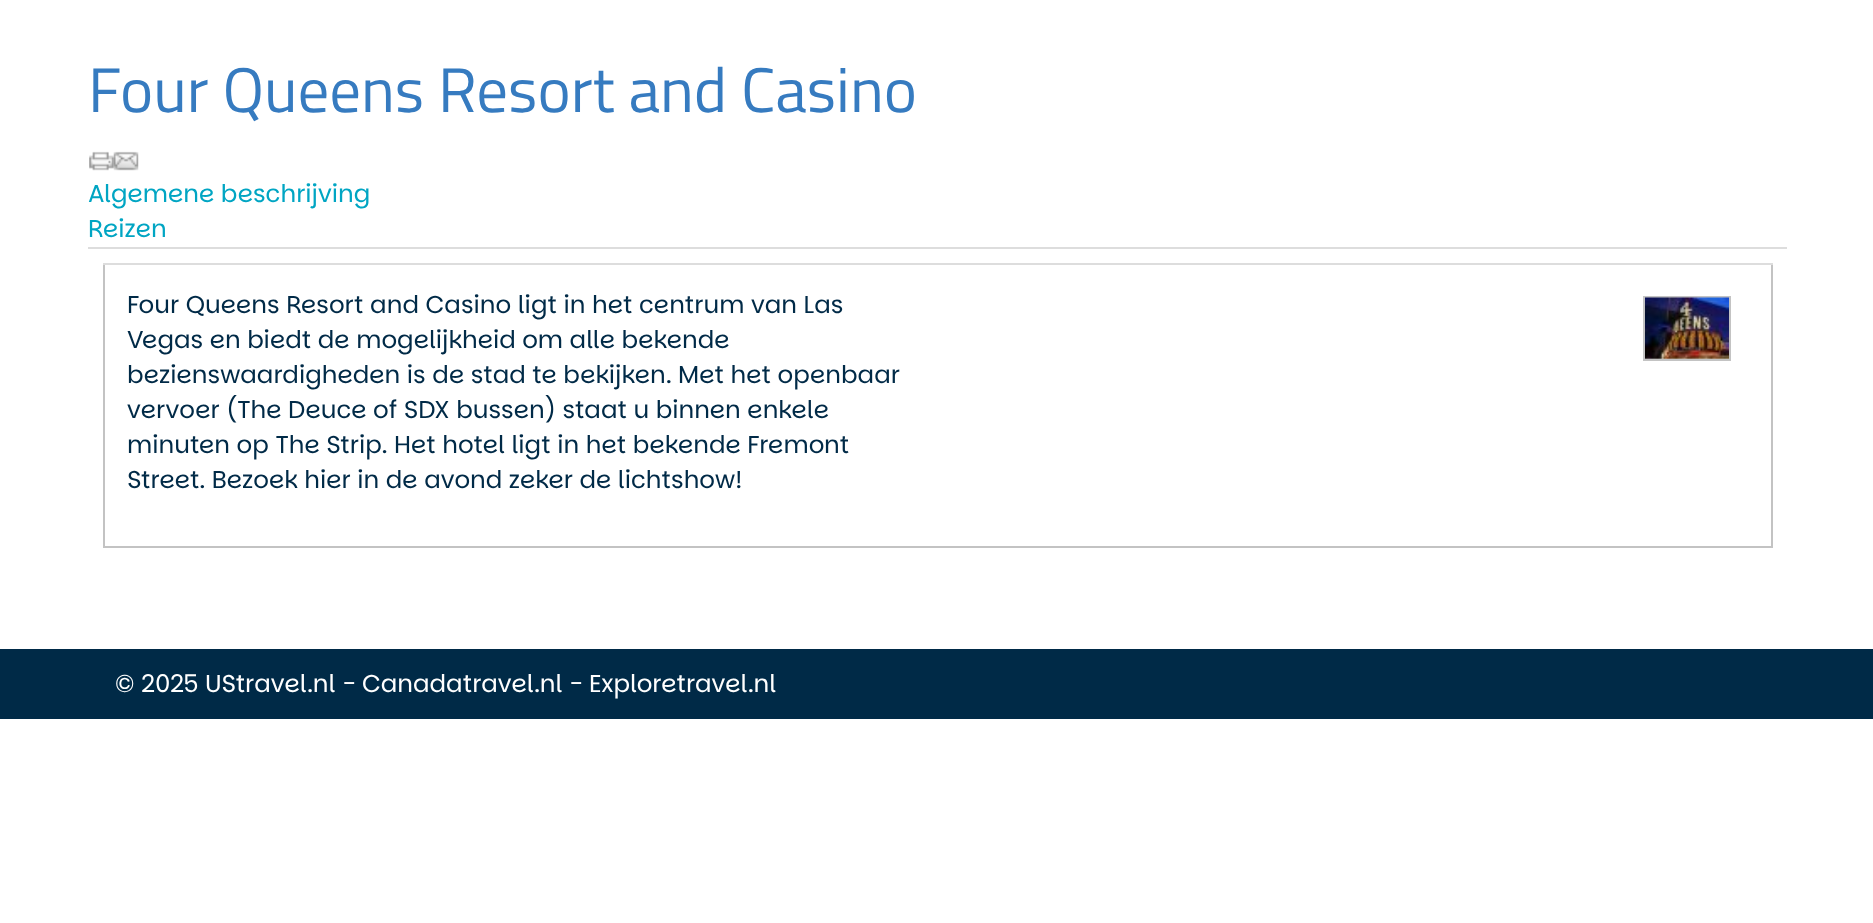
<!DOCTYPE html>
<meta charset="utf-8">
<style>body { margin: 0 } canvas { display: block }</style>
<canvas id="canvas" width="1873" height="923"></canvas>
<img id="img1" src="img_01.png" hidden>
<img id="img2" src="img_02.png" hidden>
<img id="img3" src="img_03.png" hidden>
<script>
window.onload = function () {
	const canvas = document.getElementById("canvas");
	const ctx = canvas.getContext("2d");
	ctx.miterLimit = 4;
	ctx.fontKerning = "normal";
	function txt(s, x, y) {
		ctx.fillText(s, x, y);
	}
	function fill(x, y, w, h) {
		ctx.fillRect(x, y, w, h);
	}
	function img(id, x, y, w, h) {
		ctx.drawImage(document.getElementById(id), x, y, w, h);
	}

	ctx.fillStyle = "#FFFFFF";
	fill(0, 0, 1873, 923);
	img("img1", 89, 151, 25, 20);
	img("img2", 113, 151, 26, 20);
	ctx.fillStyle = "#DDDDDD";
	fill(88, 247, 1699, 2);
	ctx.fillStyle = "#C3C3C3";
	fill(1771, 263, 2, 285);
	fill(103, 546, 1670, 2);
	fill(103, 263, 2, 285);
	ctx.fillStyle = "#DDDDDD";
	fill(103, 263, 1670, 2);
	ctx.strokeStyle = "#C3C3C3";
	ctx.lineWidth = 2;
	ctx.strokeRect(1644, 297, 86, 63);
	img("img3", 1645, 297, 84, 62);
	ctx.fillStyle = "#002A47";
	fill(0, 649, 1873, 70);
	ctx.font = "63px Titillium Web";
	ctx.fillStyle = "#367BC0";
	txt("Four Queens Resort and Casino", 88, 112);
	ctx.font = "24.5px Parkinsans";
	ctx.fillStyle = "#00A5C3";
	txt("Algemene beschrijving", 88, 202);
	txt("Reizen", 88, 237);
	ctx.fillStyle = "#002A47";
	txt("Four Queens Resort and Casino ligt in het centrum van Las", 127, 313);
	txt("Vegas en biedt de mogelijkheid om alle bekende", 127, 348);
	txt("bezienswaardigheden is de stad te bekijken. Met het openbaar", 127, 383);
	txt("vervoer (The Deuce of SDX bussen) staat u binnen enkele", 127, 418);
	txt("minuten op The Strip. Het hotel ligt in het bekende Fremont", 127, 453);
	txt("Street. Bezoek hier in de avond zeker de lichtshow!", 127, 488);
	ctx.fillStyle = "#FFFFFF";
	txt("© 2025 UStravel.nl - Canadatravel.nl - Exploretravel.nl", 115, 692);
};
</script>
